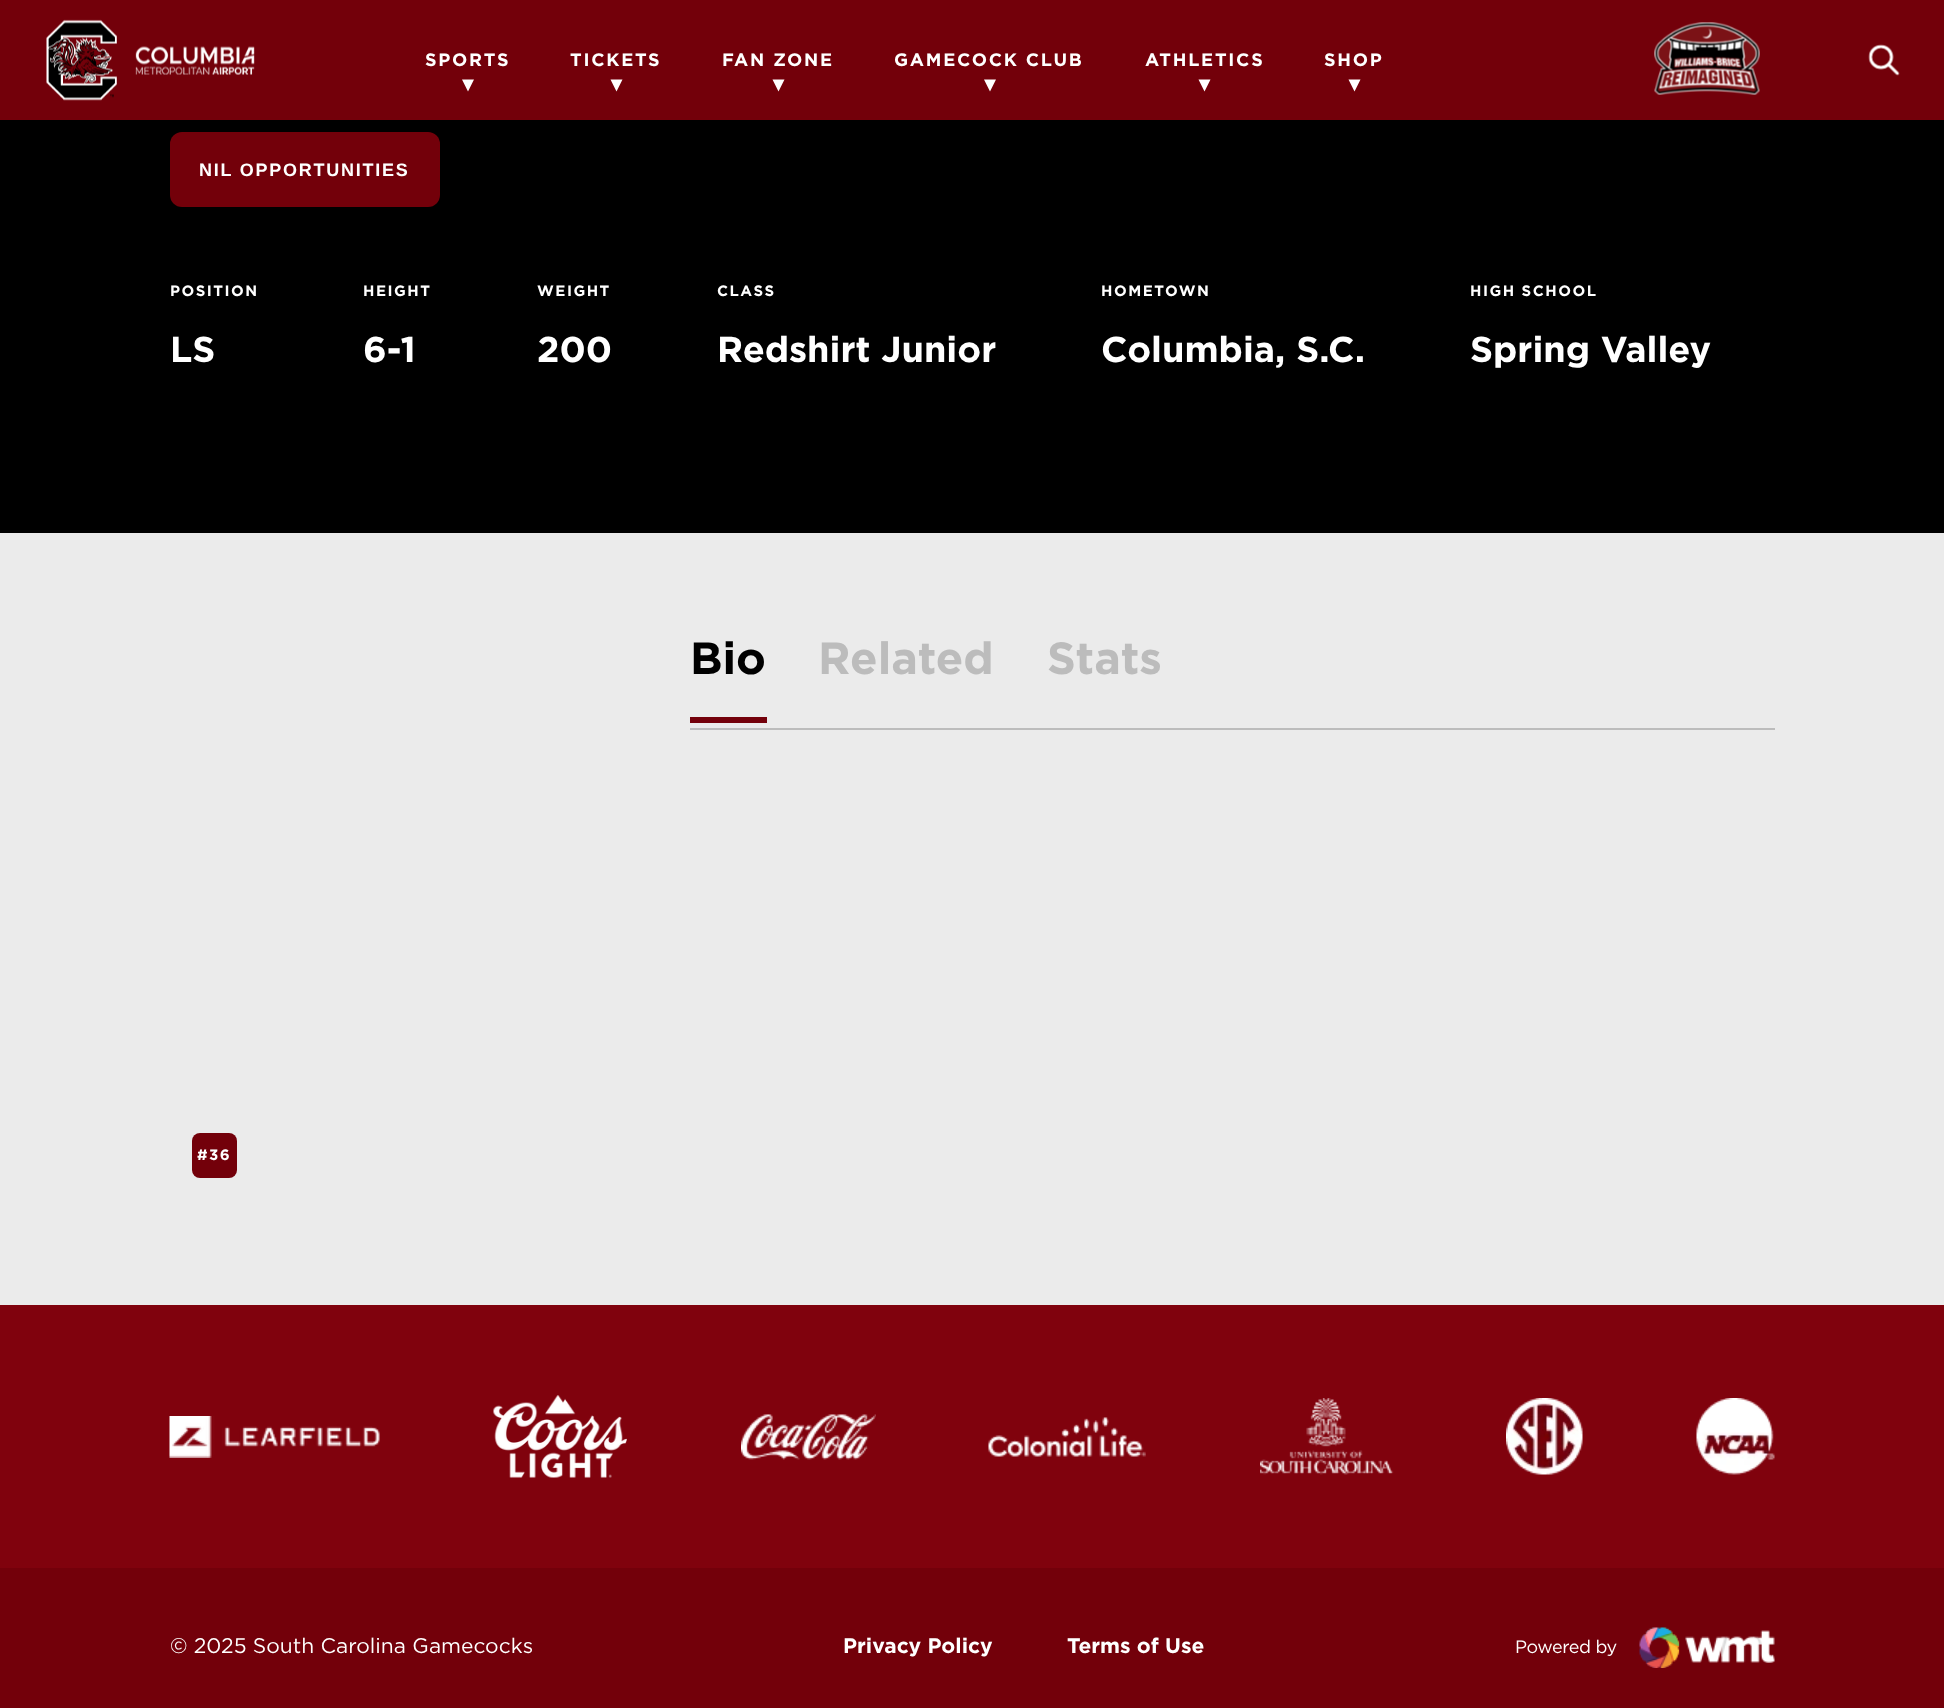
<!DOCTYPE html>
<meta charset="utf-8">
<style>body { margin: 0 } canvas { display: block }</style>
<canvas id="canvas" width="1944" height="1708"></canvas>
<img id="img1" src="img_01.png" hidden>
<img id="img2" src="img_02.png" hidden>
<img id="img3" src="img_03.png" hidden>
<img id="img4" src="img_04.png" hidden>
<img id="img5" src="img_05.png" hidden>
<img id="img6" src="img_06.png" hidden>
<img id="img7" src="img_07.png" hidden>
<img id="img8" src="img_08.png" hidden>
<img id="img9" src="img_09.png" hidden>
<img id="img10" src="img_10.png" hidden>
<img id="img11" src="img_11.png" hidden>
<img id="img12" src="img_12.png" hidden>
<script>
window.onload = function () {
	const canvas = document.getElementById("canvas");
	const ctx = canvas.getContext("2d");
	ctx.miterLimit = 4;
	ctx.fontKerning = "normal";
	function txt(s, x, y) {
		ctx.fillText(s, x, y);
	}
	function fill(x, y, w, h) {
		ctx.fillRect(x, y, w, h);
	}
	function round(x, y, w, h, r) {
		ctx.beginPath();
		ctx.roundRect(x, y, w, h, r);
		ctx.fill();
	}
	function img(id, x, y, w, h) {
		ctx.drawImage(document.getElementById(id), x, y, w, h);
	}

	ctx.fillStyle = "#EBEBEB";
	fill(0, 0, 1944, 1708);
	ctx.fillStyle = "#73000A";
	fill(0, 0, 1944, 120);
	img("img1", 46, 19, 71, 82);
	img("img2", 135, 46, 120, 29);
	ctx.fillStyle = "#FFFFFF";
	ctx.beginPath();
	ctx.moveTo(462, 79.5);
	ctx.lineTo(474, 79.5);
	ctx.lineTo(468, 91.5);
	ctx.closePath();
	ctx.fill();
	ctx.beginPath();
	ctx.moveTo(610.5, 79.5);
	ctx.lineTo(622.5, 79.5);
	ctx.lineTo(616.5, 91.5);
	ctx.closePath();
	ctx.fill();
	ctx.beginPath();
	ctx.moveTo(772.5, 79.5);
	ctx.lineTo(784.5, 79.5);
	ctx.lineTo(778.5, 91.5);
	ctx.closePath();
	ctx.fill();
	ctx.beginPath();
	ctx.moveTo(984, 79.5);
	ctx.lineTo(996, 79.5);
	ctx.lineTo(990, 91.5);
	ctx.closePath();
	ctx.fill();
	ctx.beginPath();
	ctx.moveTo(1198.5, 79.5);
	ctx.lineTo(1210.5, 79.5);
	ctx.lineTo(1204.5, 91.5);
	ctx.closePath();
	ctx.fill();
	ctx.beginPath();
	ctx.moveTo(1348.5, 79.5);
	ctx.lineTo(1360.5, 79.5);
	ctx.lineTo(1354.5, 91.5);
	ctx.closePath();
	ctx.fill();
	img("img3", 1654, 22, 106, 73);
	img("img4", 1868, 44, 32, 32);
	ctx.fillStyle = "#000000";
	fill(0, 120, 1944, 413);
	ctx.fillStyle = "#73000A";
	round(170, 132, 270, 75, 12);
	ctx.fillStyle = "#BCBCBC";
	fill(690, 728, 1085, 2);
	ctx.fillStyle = "#73000A";
	fill(690, 717, 77, 6);
	round(192, 1133, 45, 45, 8);
	ctx.fillStyle = "#80020D";
	fill(0, 1305, 1944, 263);
	img("img5", 169, 1416, 211, 42);
	img("img6", 493, 1395, 134, 83);
	img("img7", 741, 1414, 135, 46);
	img("img8", 988, 1417, 158, 40);
	img("img9", 1260, 1398, 134, 77);
	img("img10", 1506, 1398, 77, 77);
	img("img11", 1696, 1398, 79, 77);
	ctx.fillStyle = "#73000A";
	fill(0, 1568, 1944, 140);
	img("img12", 1639, 1627, 136, 41);
	ctx.letterSpacing = "1.75px";
	ctx.font = "bold 18px Gotham";
	ctx.fillStyle = "#FFFFFF";
	txt("SPORTS", 425, 66);
	txt("TICKETS", 570, 66);
	txt("FAN ZONE", 722, 66);
	txt("GAMECOCK CLUB", 894, 66);
	txt("ATHLETICS", 1145, 66);
	txt("SHOP", 1324, 66);
	ctx.font = "bold 18px Liberation Sans";
	txt("NIL OPPORTUNITIES", 199, 176);
	ctx.letterSpacing = "1.5px";
	ctx.font = "bold 15px Gotham";
	txt("POSITION", 170, 296);
	ctx.letterSpacing = "0px";
	ctx.font = "bold 36px Gotham";
	txt("LS", 170, 362);
	ctx.letterSpacing = "1.5px";
	ctx.font = "bold 15px Gotham";
	txt("HEIGHT", 363, 296);
	ctx.letterSpacing = "0px";
	ctx.font = "bold 36px Gotham";
	txt("6-1", 363, 362);
	ctx.letterSpacing = "1.5px";
	ctx.font = "bold 15px Gotham";
	txt("WEIGHT", 537, 296);
	ctx.letterSpacing = "0px";
	ctx.font = "bold 36px Gotham";
	txt("200", 537, 362);
	ctx.letterSpacing = "1.5px";
	ctx.font = "bold 15px Gotham";
	txt("CLASS", 717, 296);
	ctx.letterSpacing = "0px";
	ctx.font = "bold 36px Gotham";
	txt("Redshirt Junior", 717, 362);
	ctx.letterSpacing = "1.5px";
	ctx.font = "bold 15px Gotham";
	txt("HOMETOWN", 1101, 296);
	ctx.letterSpacing = "0px";
	ctx.font = "bold 36px Gotham";
	txt("Columbia, S.C.", 1101, 362);
	ctx.letterSpacing = "1.5px";
	ctx.font = "bold 15px Gotham";
	txt("HIGH SCHOOL", 1470, 296);
	ctx.letterSpacing = "0px";
	ctx.font = "bold 36px Gotham";
	txt("Spring Valley", 1470, 362);
	ctx.font = "bold 45px Gotham";
	ctx.fillStyle = "#000000";
	txt("Bio", 690, 674);
	ctx.fillStyle = "#BCBCBC";
	txt("Related", 818, 674);
	txt("Stats", 1047, 674);
	ctx.letterSpacing = "1.5px";
	ctx.font = "bold 15px Gotham";
	ctx.fillStyle = "#FFFFFF";
	txt("#36", 197, 1160);
	ctx.letterSpacing = "0px";
	ctx.font = "21px Gotham";
	txt("© 2025 South Carolina Gamecocks", 170, 1653);
	ctx.font = "bold 21px Gotham";
	txt("Privacy Policy", 843, 1653);
	txt("Terms of Use", 1067, 1653);
	ctx.letterSpacing = "-0.4px";
	ctx.font = "18px Gotham";
	txt("Powered by", 1515, 1653);
};
</script>
